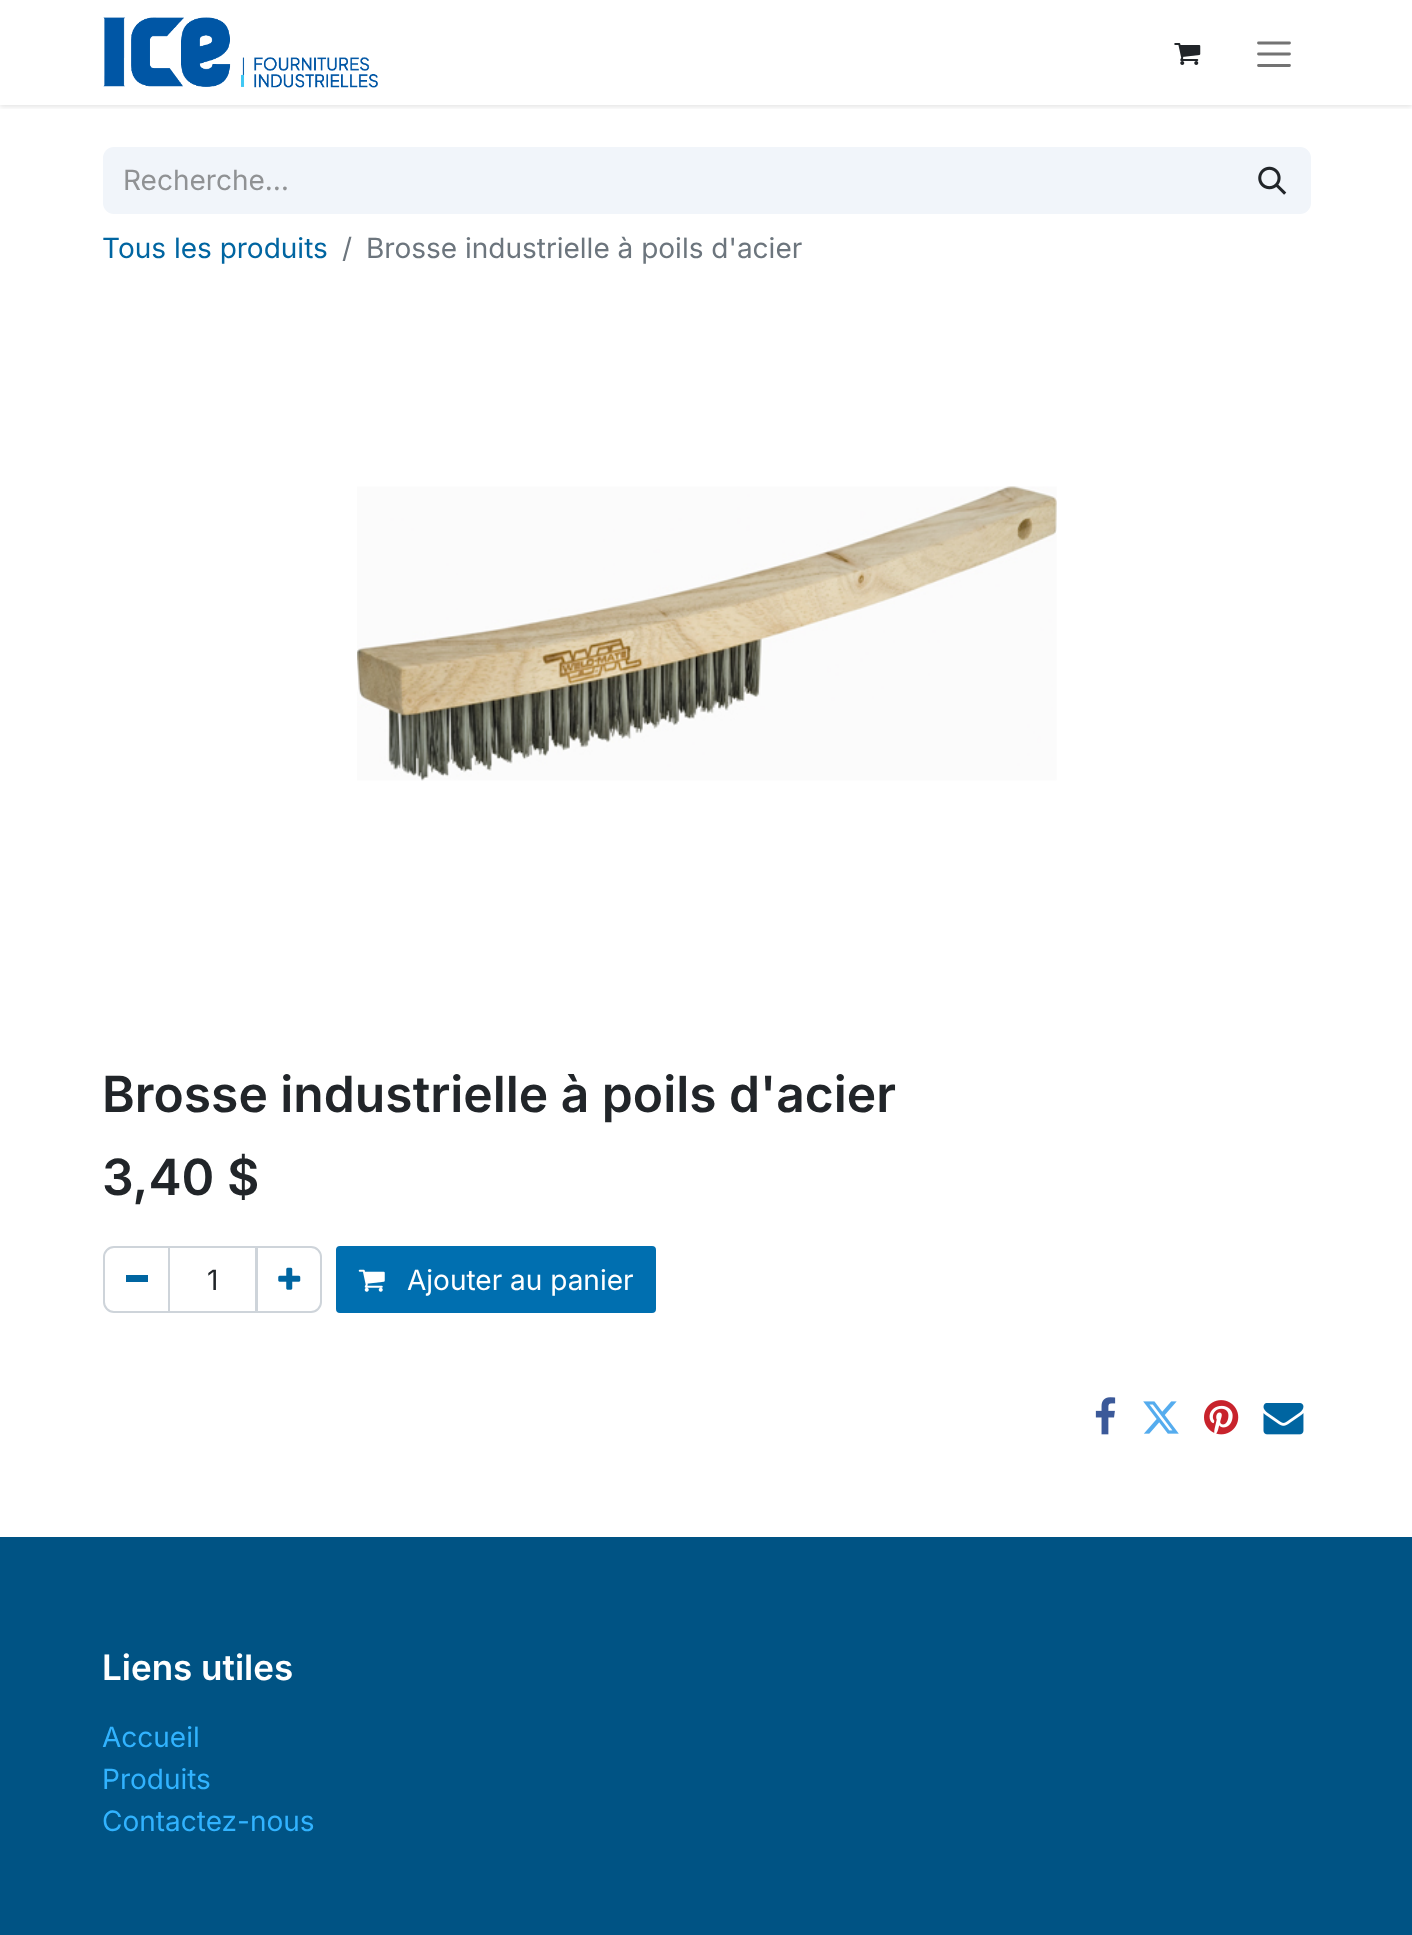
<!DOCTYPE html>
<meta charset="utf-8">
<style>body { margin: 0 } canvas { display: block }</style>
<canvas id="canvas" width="1412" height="1935"></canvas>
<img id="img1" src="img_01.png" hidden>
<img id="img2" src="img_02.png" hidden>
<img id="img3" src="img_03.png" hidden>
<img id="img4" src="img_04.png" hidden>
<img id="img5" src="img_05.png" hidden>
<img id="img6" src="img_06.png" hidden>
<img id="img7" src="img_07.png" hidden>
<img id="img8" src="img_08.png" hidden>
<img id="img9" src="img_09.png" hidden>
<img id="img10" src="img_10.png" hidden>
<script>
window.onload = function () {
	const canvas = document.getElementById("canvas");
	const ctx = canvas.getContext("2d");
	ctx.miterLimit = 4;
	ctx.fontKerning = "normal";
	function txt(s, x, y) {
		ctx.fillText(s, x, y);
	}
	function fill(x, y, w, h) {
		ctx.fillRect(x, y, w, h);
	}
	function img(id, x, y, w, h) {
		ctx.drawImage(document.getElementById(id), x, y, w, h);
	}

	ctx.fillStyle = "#FFFFFF";
	fill(0, 0, 1412, 1935);
	ctx.save();
	ctx.beginPath();
	ctx.rect(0, 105, 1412, 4);
	ctx.clip();
	ctx.fillStyle = "rgba(0, 0, 0, 0.1)";
	ctx.filter = "blur(2.5px)";
	ctx.beginPath();
	ctx.rect(0, 2, 1412, 105);
	ctx.fill();
	ctx.filter = "none";
	ctx.restore();
	img("img1", 103, 17, 275, 71);
	img("img2", 1174, 43, 27, 22);
	ctx.beginPath();
	ctx.moveTo(1258.5, 43);
	ctx.lineTo(1289.5, 43);
	ctx.moveTo(1258.5, 54);
	ctx.lineTo(1289.5, 54);
	ctx.moveTo(1258.5, 65.5);
	ctx.lineTo(1289.5, 65.5);
	ctx.strokeStyle = "#737373";
	ctx.lineWidth = 2.8;
	ctx.lineCap = "round";
	ctx.stroke();
	ctx.fillStyle = "#F1F5FA";
	ctx.beginPath();
	ctx.roundRect(103, 147, 1134, 67, [11, 0, 0, 11]);
	ctx.fill();
	ctx.beginPath();
	ctx.roundRect(1237, 148, 73, 65, [0, 10, 10, 0]);
	ctx.fill();
	ctx.strokeStyle = "#F1F5FA";
	ctx.lineWidth = 2;
	ctx.stroke();
	img("img3", 1258, 166, 29, 29);
	img("img4", 357, 486, 700, 295);
	ctx.strokeStyle = "#CED4DA";
	ctx.strokeRect(169, 1247, 87, 65);
	ctx.beginPath();
	ctx.roundRect(104, 1247, 65, 65, [10, 0, 0, 10]);
	ctx.stroke();
	ctx.fillStyle = "#0065A1";
	fill(126, 1275, 22, 7);
	ctx.beginPath();
	ctx.roundRect(257, 1247, 64, 65, [0, 10, 10, 0]);
	ctx.stroke();
	img("img5", 278, 1267, 23, 23);
	ctx.fillStyle = "#006FB0";
	ctx.beginPath();
	ctx.roundRect(337, 1247, 318, 65, 3);
	ctx.fill();
	ctx.strokeStyle = "#006FB0";
	ctx.stroke();
	img("img6", 358, 1269, 27, 23);
	img("img7", 1095, 1397, 21, 38);
	img("img8", 1143, 1401, 36, 33);
	img("img9", 1204, 1400, 35, 35);
	img("img10", 1263, 1403, 41, 32);
	ctx.fillStyle = "#005384";
	fill(0, 1537, 1412, 398);
	ctx.font = "28px Inter";
	ctx.fillStyle = "#909294";
	txt("Recherche…", 123, 190);
	ctx.fillStyle = "#0065A1";
	txt("Tous les produits", 102, 258);
	ctx.fillStyle = "#6C757D";
	txt("/", 342, 258);
	txt("Brosse industrielle à poils d'acier", 366, 258);
	ctx.font = "600 49.75px Inter";
	ctx.fillStyle = "#212529";
	txt("Brosse industrielle à poils d'acier", 102, 1112);
	txt("3,40 $", 102, 1195);
	ctx.font = "28px Inter";
	txt("1", 207, 1290);
	ctx.fillStyle = "#FFFFFF";
	txt("Ajouter au panier", 407, 1290);
	ctx.font = "600 35px Inter";
	txt("Liens utiles", 102, 1680);
	ctx.font = "28px Inter";
	ctx.fillStyle = "#31B3FF";
	txt("Accueil", 102, 1747);
	txt("Produits", 102, 1789);
	txt("Contactez-nous", 102, 1831);
};
</script>
